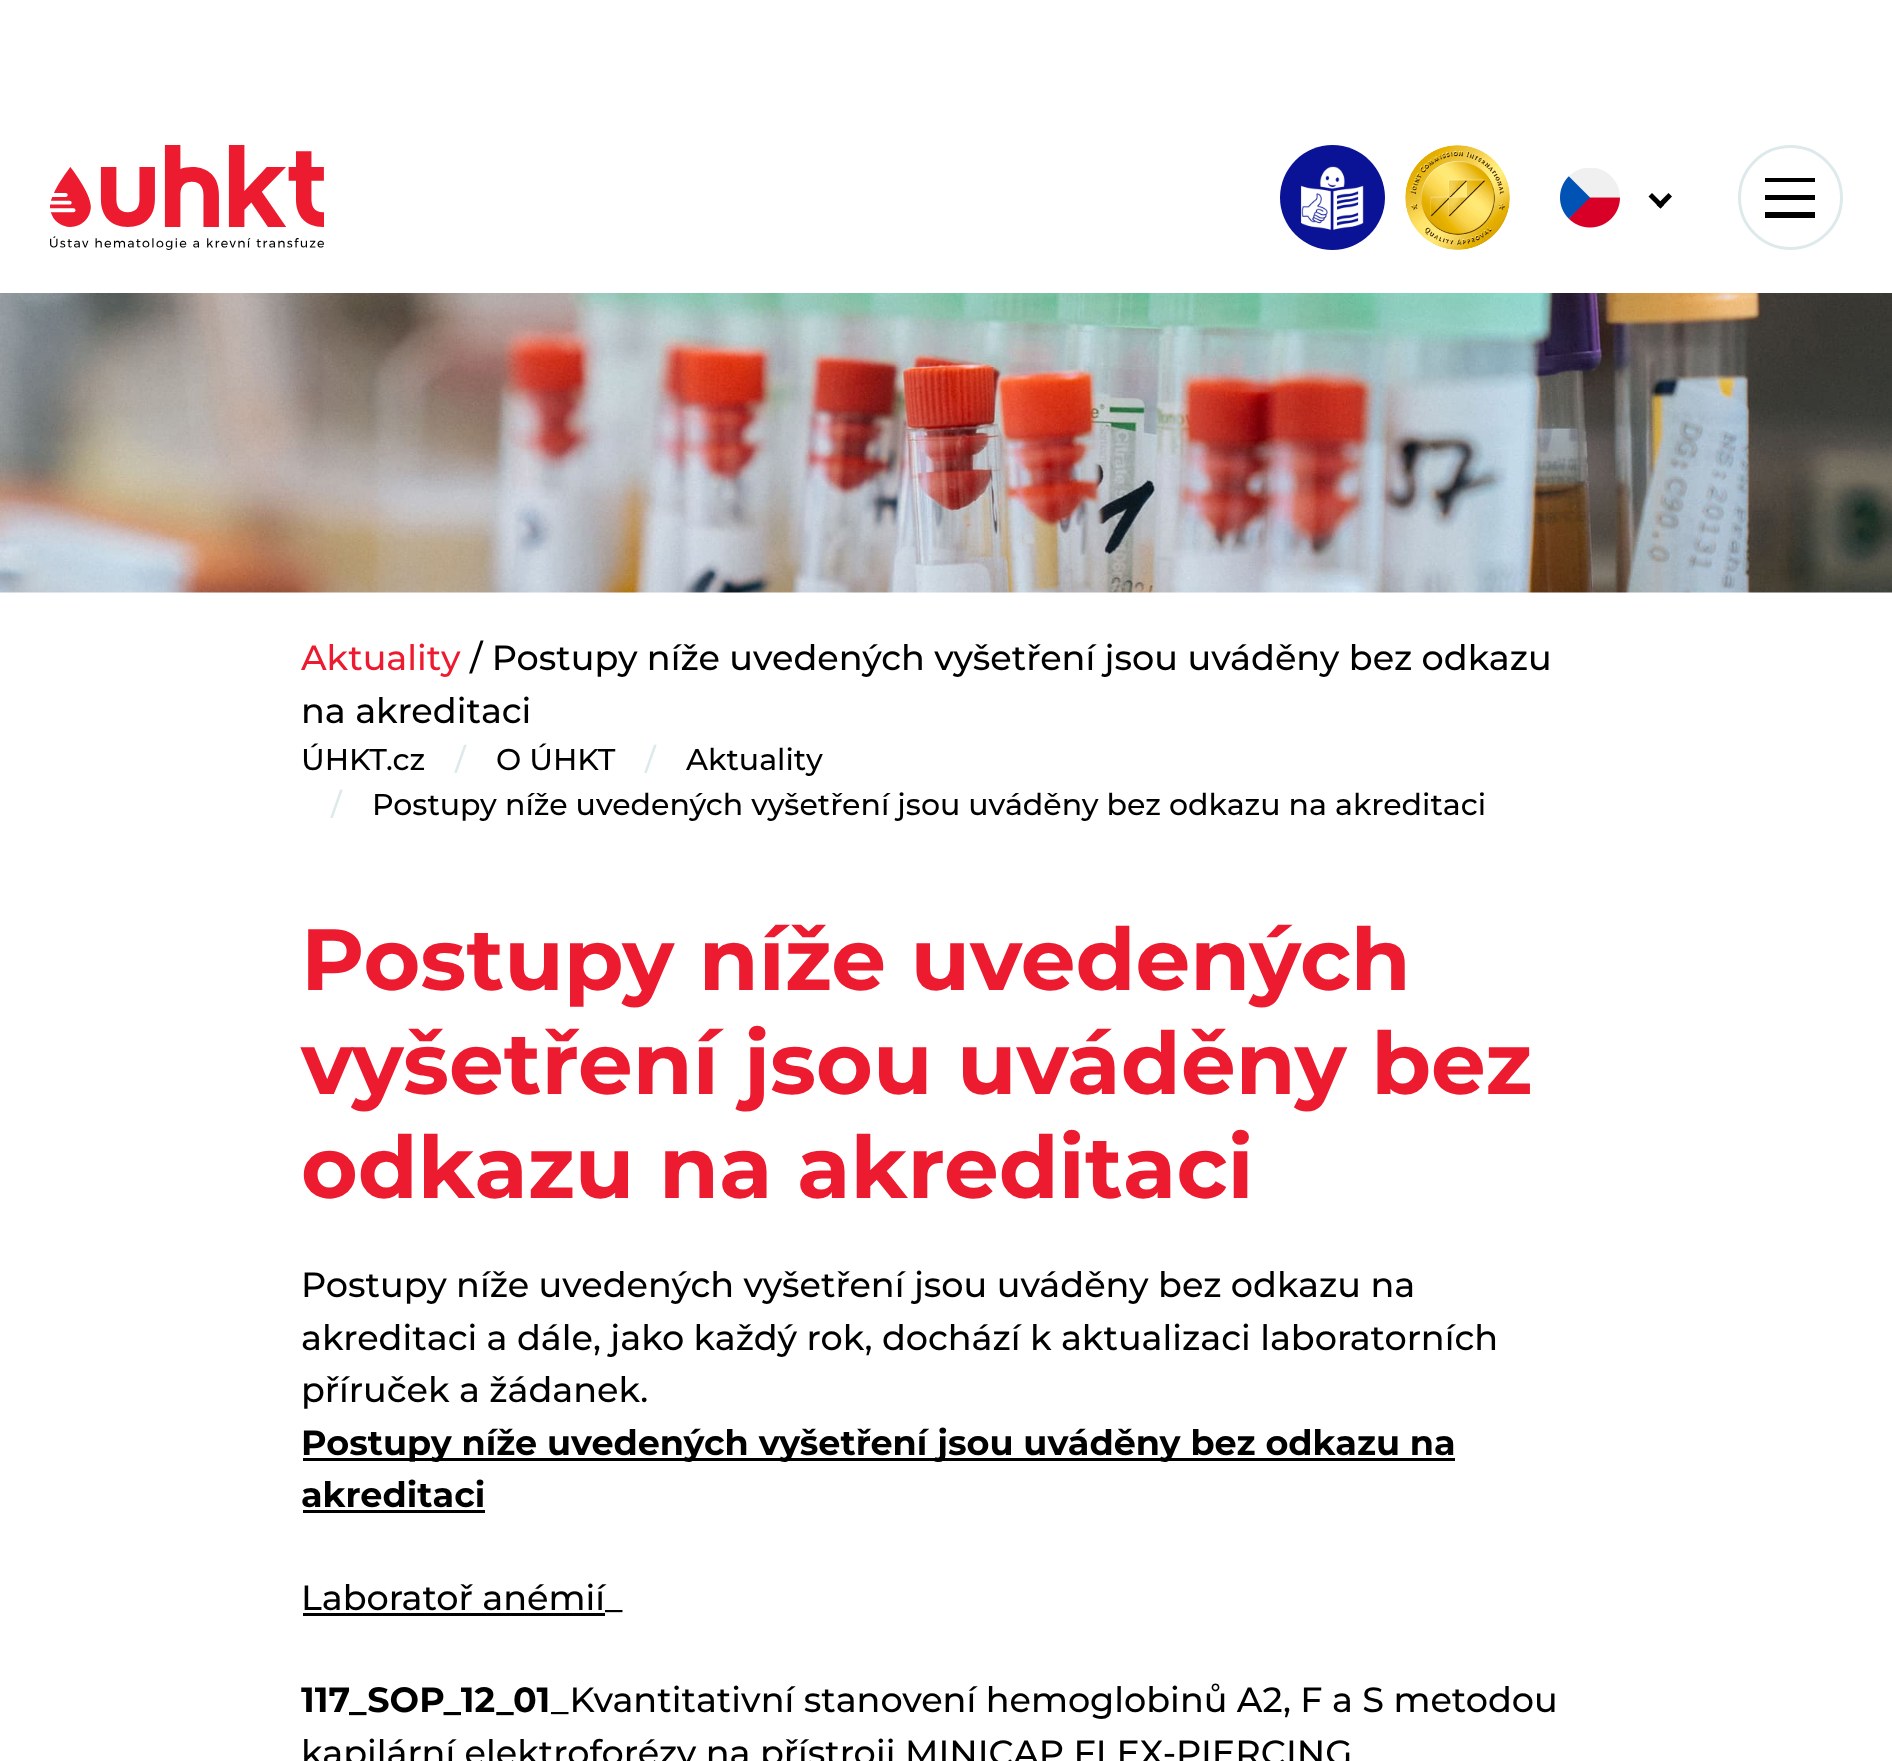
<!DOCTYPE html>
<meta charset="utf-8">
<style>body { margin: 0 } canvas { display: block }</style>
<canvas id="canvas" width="1892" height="1761"></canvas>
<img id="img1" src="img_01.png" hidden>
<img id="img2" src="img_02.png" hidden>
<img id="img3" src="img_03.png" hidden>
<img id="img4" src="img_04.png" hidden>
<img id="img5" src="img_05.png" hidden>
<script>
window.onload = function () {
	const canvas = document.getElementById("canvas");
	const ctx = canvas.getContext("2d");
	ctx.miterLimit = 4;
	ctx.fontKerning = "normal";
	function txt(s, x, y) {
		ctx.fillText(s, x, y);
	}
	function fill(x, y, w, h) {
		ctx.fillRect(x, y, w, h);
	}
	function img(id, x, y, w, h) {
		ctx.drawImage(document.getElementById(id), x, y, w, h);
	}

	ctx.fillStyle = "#FFFFFF";
	fill(0, 0, 1892, 1761);
	img("img1", 50, 145, 274, 105);
	img("img2", 1280, 145, 105, 105);
	img("img3", 1405, 145, 105, 105);
	img("img4", 1560, 168, 60, 60);
	ctx.fillStyle = "#000000";
	ctx.beginPath();
	ctx.moveTo(1668.5, 193);
	ctx.lineTo(1672, 196.5);
	ctx.lineTo(1660.5, 208.5);
	ctx.lineTo(1656.5, 205);
	ctx.closePath();
	ctx.fill();
	ctx.beginPath();
	ctx.moveTo(1652, 193);
	ctx.lineTo(1664, 205);
	ctx.lineTo(1660.5, 208.5);
	ctx.lineTo(1648.5, 196.5);
	ctx.closePath();
	ctx.fill();
	ctx.beginPath();
	ctx.arc(1790.5, 197.5, 51, 0, Math.PI * 2);
	ctx.strokeStyle = "#DEE9EB";
	ctx.lineWidth = 3;
	ctx.stroke();
	fill(1765, 178, 50, 4);
	fill(1765, 195, 50, 5);
	fill(1765, 212, 50, 6);
	img("img5", 0, 293, 1892, 300);
	fill(303, 1458, 1152, 3);
	fill(303, 1510, 182, 3);
	fill(303, 1613, 302, 3);
	ctx.font = "100 35px Montserrat";
	ctx.fillStyle = "#ED1B2F";
	txt("Aktuality", 301, 670);
	ctx.fillStyle = "#000000";
	txt("/ Postupy níže uvedených vyšetření jsou uváděny bez odkazu", 470, 670);
	txt("na akreditaci", 301, 723);
	ctx.font = "100 30px Montserrat";
	txt("ÚHKT.cz", 301, 770);
	ctx.fillStyle = "#DEE9EB";
	txt("/", 455, 770);
	ctx.fillStyle = "#000000";
	txt("O ÚHKT", 496, 770);
	ctx.fillStyle = "#DEE9EB";
	txt("/", 645, 770);
	ctx.fillStyle = "#000000";
	txt("Aktuality", 686, 770);
	ctx.fillStyle = "#DEE9EB";
	txt("/", 331, 815);
	ctx.fillStyle = "#000000";
	txt("Postupy níže uvedených vyšetření jsou uváděny bez odkazu na akreditaci", 372, 815);
	ctx.font = "100 86.75px 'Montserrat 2'";
	ctx.fillStyle = "#ED1B2F";
	txt("Postupy níže uvedených", 301, 990);
	txt("vyšetření jsou uváděny bez", 301, 1094);
	txt("odkazu na akreditaci", 301, 1198);
	ctx.font = "100 35px Montserrat";
	ctx.fillStyle = "#000000";
	txt("Postupy níže uvedených vyšetření jsou uváděny bez odkazu na", 301, 1297);
	txt("akreditaci a dále, jako každý rok, dochází k aktualizaci laboratorních", 301, 1350);
	txt("příruček a žádanek.", 301, 1402);
	ctx.font = "100 35px 'Montserrat 2'";
	txt("Postupy níže uvedených vyšetření jsou uváděny bez odkazu na", 301, 1455);
	txt("akreditaci", 301, 1507);
	ctx.font = "100 35px Montserrat";
	txt("Laboratoř anémií_", 301, 1610);
	ctx.font = "100 35px 'Montserrat 2'";
	txt("117_SOP_12_01", 301, 1712);
	ctx.font = "100 35px Montserrat";
	txt("_Kvantitativní stanovení hemoglobinů A2, F a S metodou", 551, 1712);
	txt("kapilární elektroforézy na přístroji MINICAP FLEX-PIERCING", 301, 1765);
};
</script>
